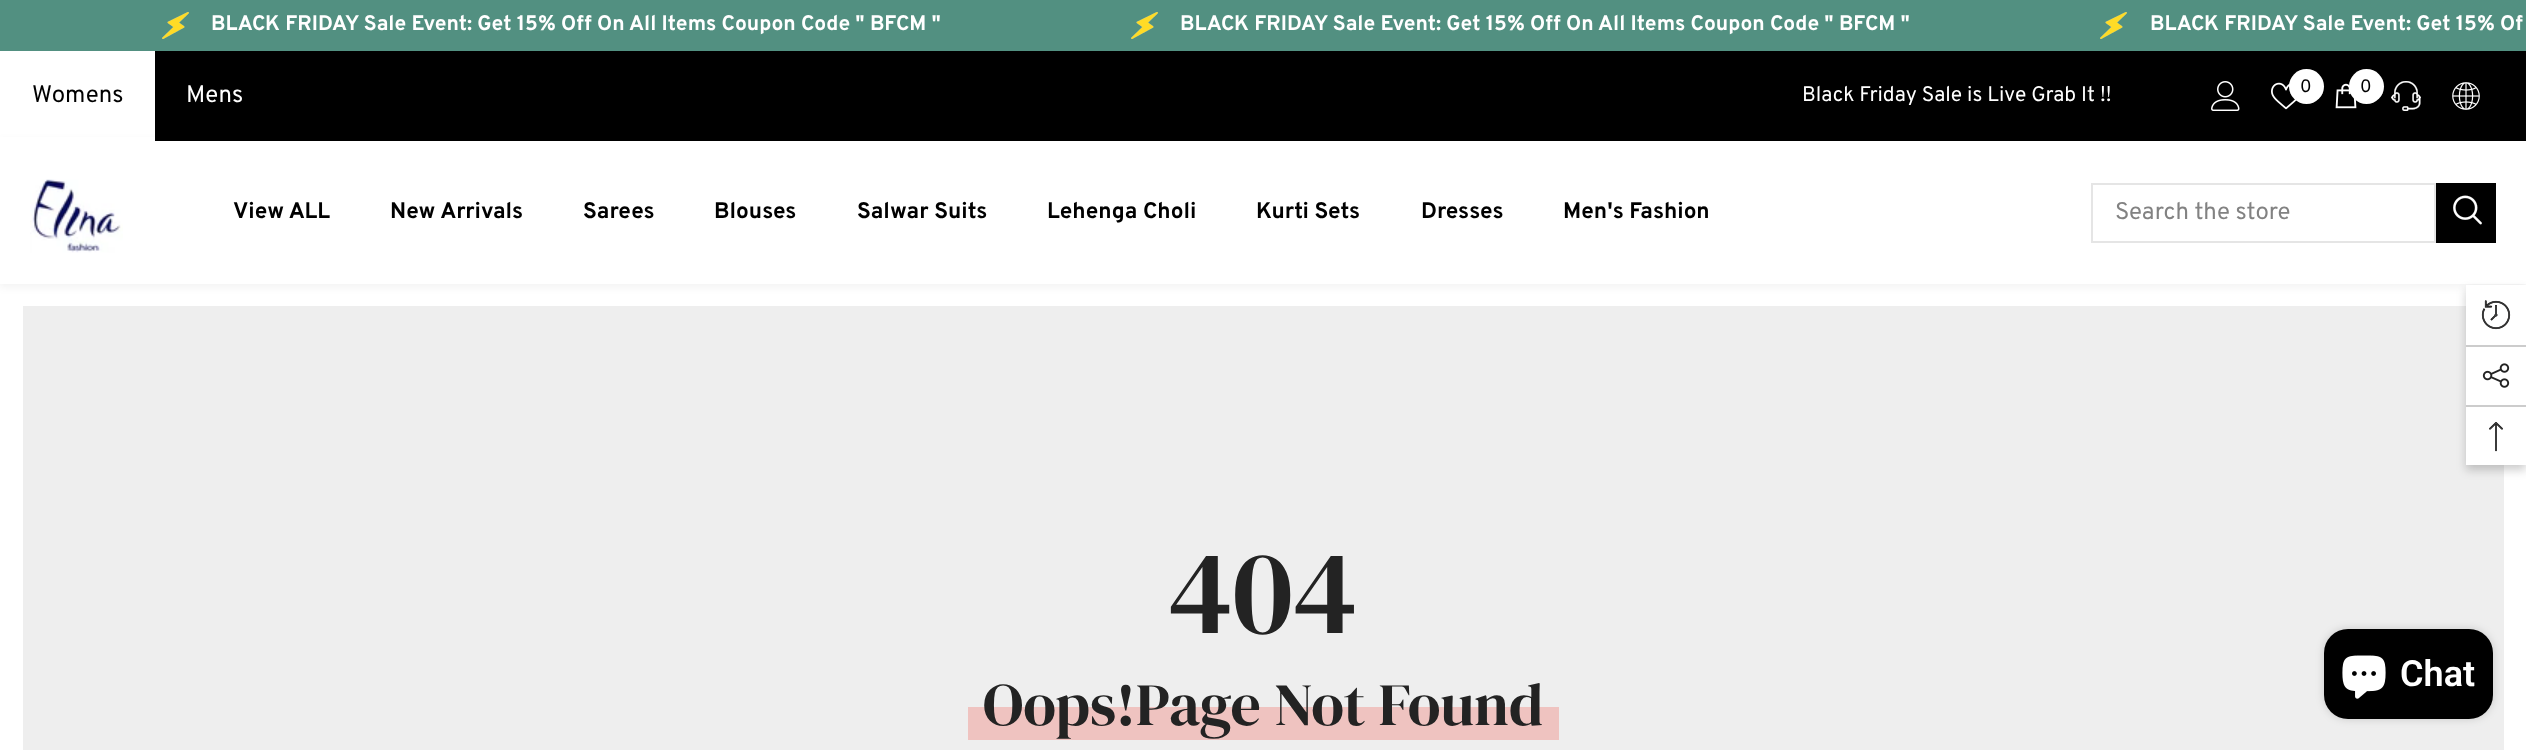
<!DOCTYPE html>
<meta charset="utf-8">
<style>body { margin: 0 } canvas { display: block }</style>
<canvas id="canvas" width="2526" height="750"></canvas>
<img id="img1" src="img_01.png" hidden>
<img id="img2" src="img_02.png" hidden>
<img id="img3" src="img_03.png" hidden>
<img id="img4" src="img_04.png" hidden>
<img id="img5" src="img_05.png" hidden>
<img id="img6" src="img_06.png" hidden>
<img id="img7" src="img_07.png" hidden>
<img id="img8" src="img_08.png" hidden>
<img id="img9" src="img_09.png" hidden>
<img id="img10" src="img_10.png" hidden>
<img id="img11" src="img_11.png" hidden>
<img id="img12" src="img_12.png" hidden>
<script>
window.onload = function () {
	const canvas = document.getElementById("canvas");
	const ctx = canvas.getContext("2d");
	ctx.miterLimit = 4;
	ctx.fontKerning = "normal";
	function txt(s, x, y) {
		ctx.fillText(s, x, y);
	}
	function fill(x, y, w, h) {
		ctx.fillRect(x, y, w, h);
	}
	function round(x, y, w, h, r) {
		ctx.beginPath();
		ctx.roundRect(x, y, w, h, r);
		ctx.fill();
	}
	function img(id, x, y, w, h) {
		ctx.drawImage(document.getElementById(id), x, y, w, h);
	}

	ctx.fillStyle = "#FFFFFF";
	fill(0, 0, 2526, 750);
	ctx.fillStyle = "#529081";
	fill(0, 0, 2526, 51);
	img("img1", 162, 12, 27, 27);
	img("img1", 1131, 12, 27, 27);
	img("img1", 2100, 12, 27, 27);
	ctx.fillStyle = "#000000";
	fill(155, 51, 2371, 90);
	ctx.fillStyle = "rgba(0, 0, 0, 0.05)";
	ctx.filter = "blur(4.5px)";
	ctx.beginPath();
	ctx.rect(-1, 141, 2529, 146);
	ctx.fill();
	ctx.filter = "none";
	ctx.fillStyle = "#FFFFFF";
	fill(0, 137, 155, 4);
	img("img2", 2211, 81, 29, 30);
	img("img3", 2271, 82, 26, 28);
	ctx.beginPath();
	ctx.arc(2306.5, 86.5, 17.5, 0, Math.PI * 2);
	ctx.fill();
	img("img4", 2335, 83, 22, 26);
	ctx.beginPath();
	ctx.arc(2366.5, 86.5, 17.5, 0, Math.PI * 2);
	ctx.fill();
	img("img5", 2391, 81, 30, 30);
	img("img6", 2452, 82, 28, 28);
	fill(0, 141, 2526, 143);
	img("img7", 30, 179, 93, 74);
	ctx.strokeStyle = "#E5E5E5";
	ctx.lineWidth = 2;
	ctx.strokeRect(2092, 184, 343, 58);
	ctx.fillStyle = "#000000";
	fill(2436, 183, 60, 60);
	img("img8", 2453, 195, 29, 30);
	ctx.fillStyle = "#EEEEEE";
	fill(23, 306, 2481, 444);
	ctx.fillStyle = "#EFC3C0";
	fill(968, 707, 591, 33);
	ctx.fillStyle = "rgba(0, 0, 0, 0.2)";
	ctx.filter = "blur(5px)";
	ctx.beginPath();
	ctx.rect(2466, 290, 60, 180);
	ctx.fill();
	ctx.filter = "none";
	ctx.fillStyle = "#FFFFFF";
	fill(2466, 285, 60, 180);
	img("img9", 2481, 300, 30, 30);
	ctx.fillStyle = "#CCCCCC";
	fill(2466, 345, 60, 2);
	img("img10", 2482, 363, 28, 25);
	fill(2466, 405, 60, 2);
	img("img11", 2489, 422, 14, 30);
	ctx.fillStyle = "rgba(0, 0, 0, 0.15)";
	ctx.filter = "blur(4px)";
	ctx.beginPath();
	ctx.roundRect(2324, 629, 169, 90, 24);
	ctx.fill();
	ctx.filter = "none";
	ctx.fillStyle = "#000000";
	round(2324, 629, 169, 90, 24);
	img("img12", 2342, 655, 44, 44);
	ctx.font = "bold 21px Overpass";
	ctx.fillStyle = "#FFFFFF";
	txt("BLACK FRIDAY Sale Event: Get 15% Off On All Items Coupon Code \" BFCM \"", 211, 30);
	txt("BLACK FRIDAY Sale Event: Get 15% Off On All Items Coupon Code \" BFCM \"", 1180, 30);
	txt("BLACK FRIDAY Sale Event: Get 15% Of", 2150, 30);
	ctx.font = "24px Overpass";
	ctx.fillStyle = "#000000";
	txt("Womens", 32, 102);
	ctx.fillStyle = "#FFFFFF";
	txt("Mens", 186, 102);
	ctx.font = "21px Overpass";
	txt("Black Friday Sale is Live Grab It !!", 1802, 101);
	ctx.font = "18px Overpass";
	ctx.fillStyle = "#000000";
	txt("0", 2300, 92);
	txt("0", 2360, 92);
	ctx.font = "bold 22.5px Overpass";
	txt("View ALL", 233, 218);
	txt("New Arrivals", 390, 218);
	txt("Sarees", 583, 218);
	txt("Blouses", 714, 218);
	txt("Salwar Suits", 857, 218);
	txt("Lehenga Choli", 1047, 218);
	txt("Kurti Sets", 1256, 218);
	txt("Dresses", 1421, 218);
	txt("Men's Fashion", 1563, 218);
	ctx.font = "24px Overpass";
	ctx.fillStyle = "#828282";
	txt("Search the store", 2115, 219);
	ctx.font = "120px DM Serif Display";
	ctx.fillStyle = "#232323";
	txt("404", 1168, 633);
	ctx.font = "60px DM Serif Display";
	txt("Oops!Page Not Found", 983, 725);
	ctx.font = "600 36px Roboto";
	ctx.fillStyle = "#FFFFFF";
	txt("Chat", 2400, 686);
};
</script>
